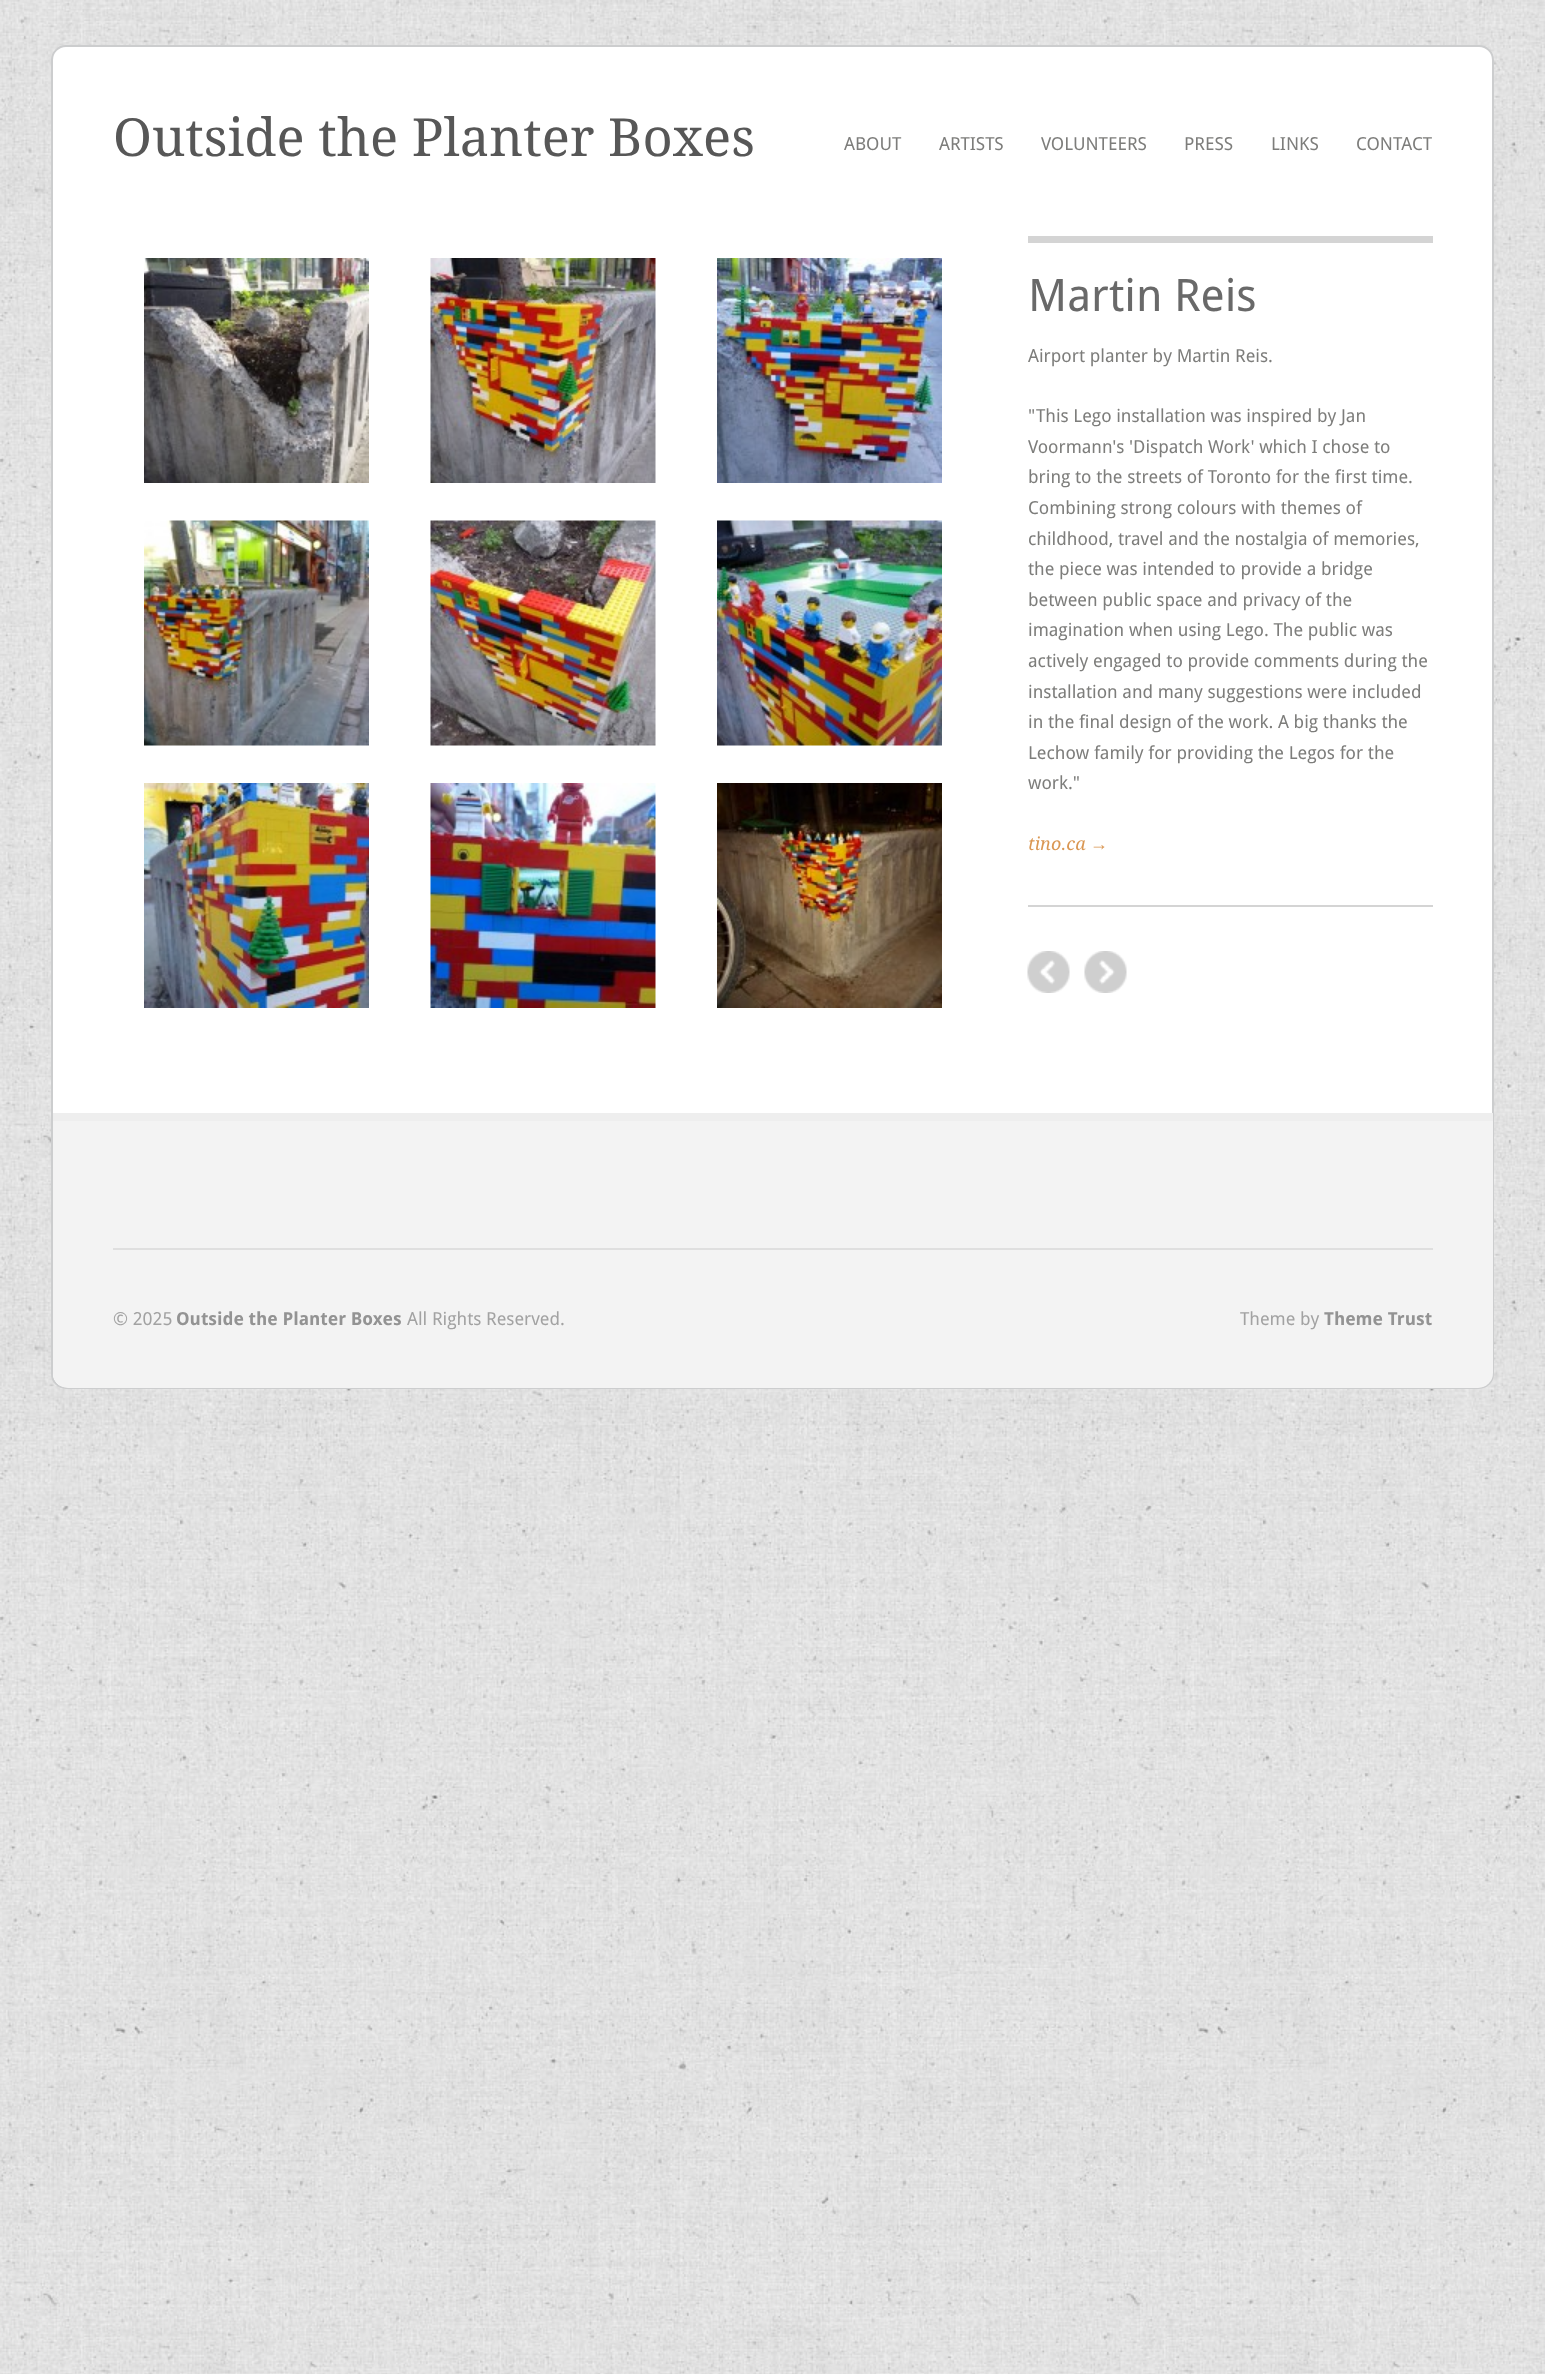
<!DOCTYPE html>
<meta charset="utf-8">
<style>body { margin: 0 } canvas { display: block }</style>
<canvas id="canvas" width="1545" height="2374"></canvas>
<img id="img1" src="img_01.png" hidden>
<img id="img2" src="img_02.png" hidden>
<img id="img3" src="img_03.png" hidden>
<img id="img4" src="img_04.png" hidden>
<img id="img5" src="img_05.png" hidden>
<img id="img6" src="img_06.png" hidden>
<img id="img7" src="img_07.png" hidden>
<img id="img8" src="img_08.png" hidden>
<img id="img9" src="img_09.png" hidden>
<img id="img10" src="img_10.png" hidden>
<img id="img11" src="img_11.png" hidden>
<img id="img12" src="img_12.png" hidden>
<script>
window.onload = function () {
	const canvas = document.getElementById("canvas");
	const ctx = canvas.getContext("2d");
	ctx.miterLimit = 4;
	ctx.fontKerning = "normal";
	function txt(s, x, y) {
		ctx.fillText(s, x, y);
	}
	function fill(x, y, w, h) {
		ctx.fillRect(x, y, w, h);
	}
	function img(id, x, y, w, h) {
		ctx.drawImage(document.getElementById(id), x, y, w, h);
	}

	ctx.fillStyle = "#FFFFFF";
	fill(0, 0, 1545, 2374);
	img("img1", 0, 0, 1545, 2374);
	ctx.beginPath();
	ctx.roundRect(52, 46, 1441, 1342, 14);
	ctx.fill();
	ctx.strokeStyle = "#CCCDCE";
	ctx.lineWidth = 2;
	ctx.stroke();
	img("img2", 144, 258, 225, 225);
	img("img3", 430, 258, 226, 225);
	img("img4", 717, 258, 225, 225);
	img("img5", 144, 520, 225, 226);
	img("img6", 430, 520, 226, 226);
	img("img7", 717, 520, 225, 226);
	img("img8", 144, 783, 225, 225);
	img("img9", 430, 783, 226, 225);
	img("img10", 717, 783, 225, 225);
	ctx.fillStyle = "#D4D4D4";
	fill(1028, 236, 405, 7);
	fill(1028, 905, 405, 2);
	img("img11", 1027, 951, 43, 42);
	img("img12", 1084, 951, 43, 42);
	ctx.fillStyle = "#F3F3F3";
	ctx.beginPath();
	ctx.roundRect(53, 1113, 1440, 275, [0, 0, 15, 15]);
	ctx.fill();
	ctx.fillStyle = "#EEEEEE";
	fill(53, 1113, 1440, 8);
	ctx.fillStyle = "#DFDFDF";
	fill(113, 1248, 1320, 2);
	ctx.font = "52.5px Droid Serif";
	ctx.fillStyle = "#575757";
	txt("Outside the Planter Boxes", 113, 156);
	ctx.font = "18px Droid Sans";
	ctx.fillStyle = "#7D7D7B";
	txt("ABOUT", 844, 150);
	txt("ARTISTS", 939, 150);
	txt("VOLUNTEERS", 1041, 150);
	txt("PRESS", 1184, 150);
	txt("LINKS", 1271, 150);
	txt("CONTACT", 1356, 150);
	ctx.font = "45px Droid Sans";
	ctx.fillStyle = "#696969";
	txt("Martin Reis", 1028, 311);
	ctx.font = "18px Droid Sans";
	ctx.fillStyle = "#7D7D7B";
	txt("Airport planter by Martin Reis.", 1028, 362);
	txt("\"This Lego installation was inspired by Jan", 1028, 422);
	txt("Voormann's 'Dispatch Work' which I chose to", 1028, 453);
	txt("bring to the streets of Toronto for the first time.", 1028, 483);
	txt("Combining strong colours with themes of", 1028, 514);
	txt("childhood, travel and the nostalgia of memories,", 1028, 545);
	txt("the piece was intended to provide a bridge", 1028, 575);
	txt("between public space and privacy of the", 1028, 606);
	txt("imagination when using Lego. The public was", 1028, 636);
	txt("actively engaged to provide comments during the", 1028, 667);
	txt("installation and many suggestions were included", 1028, 698);
	txt("in the final design of the work. A big thanks the", 1028, 728);
	txt("Lechow family for providing the Legos for the", 1028, 759);
	txt("work.\"", 1028, 789);
	ctx.font = "italic 18px Droid Serif";
	ctx.fillStyle = "#DA9753";
	txt("tino.ca", 1028, 850);
	ctx.font = "italic 18px Liberation Serif";
	txt("→", 1090, 850);
	ctx.font = "18px Droid Sans";
	ctx.fillStyle = "#A2A2A2";
	txt("© 2025", 113, 1325);
	ctx.font = "bold 18px Droid Sans";
	ctx.fillStyle = "#939393";
	txt("Outside the Planter Boxes", 176, 1325);
	ctx.font = "18px Droid Sans";
	ctx.fillStyle = "#A2A2A2";
	txt("All Rights Reserved.", 407, 1325);
	txt("Theme by", 1240, 1325);
	ctx.font = "bold 18px Droid Sans";
	ctx.fillStyle = "#939393";
	txt("Theme Trust", 1324, 1325);
};
</script>
